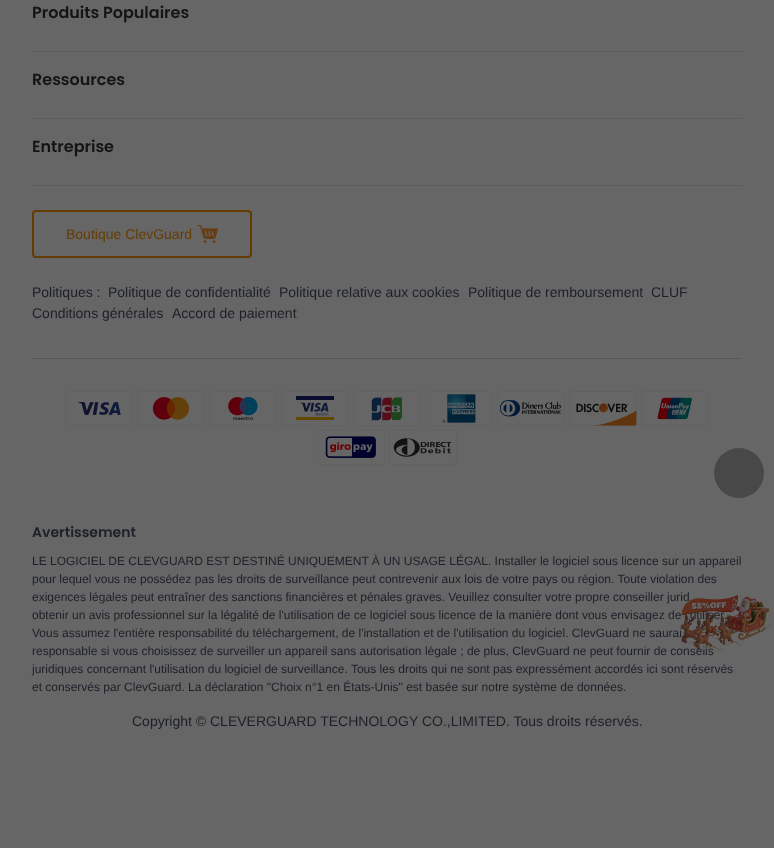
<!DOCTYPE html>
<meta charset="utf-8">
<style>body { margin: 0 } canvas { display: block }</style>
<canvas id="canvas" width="774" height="848"></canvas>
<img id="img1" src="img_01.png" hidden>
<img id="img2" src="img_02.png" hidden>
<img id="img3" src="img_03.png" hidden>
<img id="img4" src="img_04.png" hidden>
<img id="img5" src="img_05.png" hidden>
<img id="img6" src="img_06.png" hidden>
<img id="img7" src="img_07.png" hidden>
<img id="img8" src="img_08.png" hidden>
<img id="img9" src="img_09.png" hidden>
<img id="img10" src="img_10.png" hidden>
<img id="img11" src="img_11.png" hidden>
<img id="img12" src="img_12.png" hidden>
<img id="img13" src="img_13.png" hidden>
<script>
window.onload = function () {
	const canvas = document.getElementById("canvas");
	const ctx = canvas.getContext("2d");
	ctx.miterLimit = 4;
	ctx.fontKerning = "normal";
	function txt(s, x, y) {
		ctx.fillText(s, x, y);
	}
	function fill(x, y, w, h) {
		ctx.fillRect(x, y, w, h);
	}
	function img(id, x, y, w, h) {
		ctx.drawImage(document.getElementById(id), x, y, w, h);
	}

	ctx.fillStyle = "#666666";
	fill(0, 0, 774, 848);
	ctx.fillStyle = "#5A5D5F";
	fill(32, 51, 710, 1);
	fill(32, 118, 710, 1);
	fill(32, 185, 710, 1);
	ctx.beginPath();
	ctx.roundRect(33, 211, 218, 46, 3);
	ctx.strokeStyle = "#643C00";
	ctx.lineWidth = 2;
	ctx.stroke();
	img("img1", 198, 224, 20, 19);
	ctx.fillStyle = "#585858";
	fill(32, 358, 710, 1);
	img("img2", 65, 391, 68, 35);
	img("img3", 137, 391, 68, 35);
	img("img4", 209, 391, 68, 35);
	img("img5", 281, 391, 68, 35);
	img("img6", 353, 391, 68, 35);
	img("img7", 425, 391, 68, 35);
	img("img8", 497, 391, 68, 35);
	img("img9", 569, 391, 68, 35);
	img("img10", 641, 391, 68, 35);
	img("img11", 317, 430, 68, 35);
	img("img12", 389, 430, 68, 35);
	ctx.fillStyle = "#484848";
	ctx.beginPath();
	ctx.arc(739, 473, 25, 0, Math.PI * 2);
	ctx.fill();
	ctx.font = "600 16px Poppins";
	ctx.fillStyle = "#141414";
	txt("Produits Populaires", 32, 18);
	txt("Ressources", 32, 85);
	txt("Entreprise", 32, 152);
	ctx.font = "14px Liberation Sans";
	ctx.fillStyle = "#643C00";
	txt("Boutique ClevGuard", 66, 239);
	ctx.fillStyle = "#1D2028";
	txt("Politiques :", 32, 297);
	txt("Politique de confidentialité", 108, 297);
	txt("Politique relative aux cookies", 279, 297);
	txt("Politique de remboursement", 468, 297);
	txt("CLUF", 651, 297);
	txt("Conditions générales", 32, 318);
	txt("Accord de paiement", 172, 318);
	ctx.font = "600 14px Poppins";
	txt("Avertissement", 32, 537);
	ctx.font = "12px Liberation Sans";
	txt("LE LOGICIEL DE CLEVGUARD EST DESTINÉ UNIQUEMENT À UN USAGE LÉGAL. Installer le logiciel sous licence sur un appareil", 32, 565);
	txt("pour lequel vous ne possédez pas les droits de surveillance peut contrevenir aux lois de votre pays ou région. Toute violation des", 32, 583);
	txt("exigences légales peut entraîner des sanctions financières et pénales graves. Veuillez consulter votre propre conseiller jurid", 32, 601);
	txt("obtenir un avis professionnel sur la légalité de l'utilisation de ce logiciel sous licence de la manière dont vous envisagez de l'utiliser.", 32, 619);
	txt("Vous assumez l'entière responsabilité du téléchargement, de l'installation et de l'utilisation du logiciel. ClevGuard ne saurai", 32, 637);
	txt("responsable si vous choisissez de surveiller un appareil sans autorisation légale ; de plus, ClevGuard ne peut fournir de conseils", 32, 655);
	txt("juridiques concernant l'utilisation du logiciel de surveillance. Tous les droits qui ne sont pas expressément accordés ici sont réservés", 32, 673);
	txt("et conservés par ClevGuard. La déclaration \"Choix n°1 en États-Unis\" est basée sur notre système de données.", 32, 691);
	ctx.font = "14px Liberation Sans";
	txt("Copyright © CLEVERGUARD TECHNOLOGY CO.,LIMITED. Tous droits réservés.", 132, 726);
	img("img13", 680, 595, 93, 57);
};
</script>
